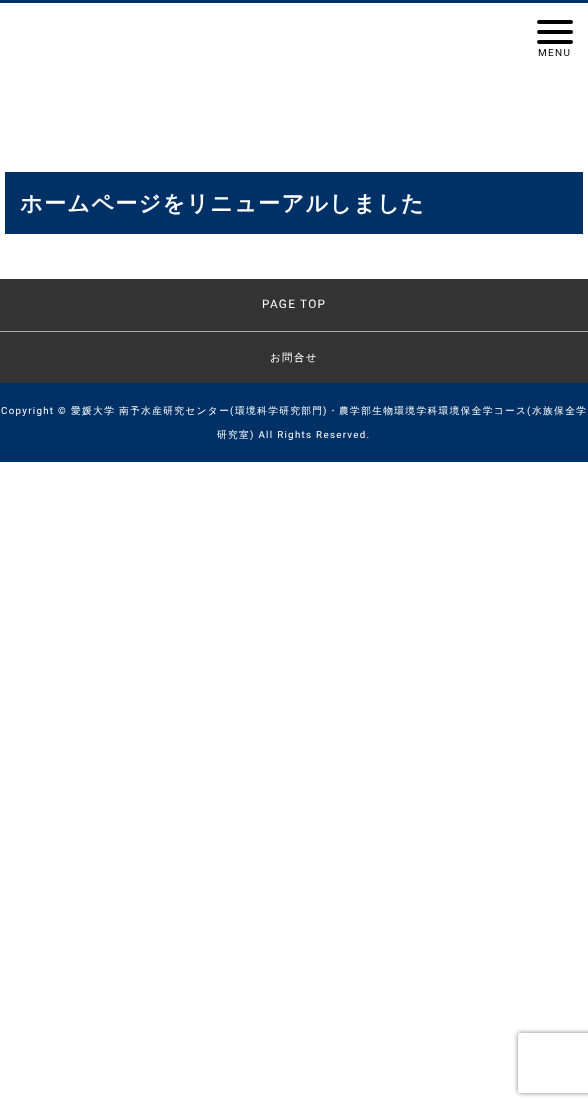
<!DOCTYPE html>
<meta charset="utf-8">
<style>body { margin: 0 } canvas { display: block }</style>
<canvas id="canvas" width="588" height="1107"></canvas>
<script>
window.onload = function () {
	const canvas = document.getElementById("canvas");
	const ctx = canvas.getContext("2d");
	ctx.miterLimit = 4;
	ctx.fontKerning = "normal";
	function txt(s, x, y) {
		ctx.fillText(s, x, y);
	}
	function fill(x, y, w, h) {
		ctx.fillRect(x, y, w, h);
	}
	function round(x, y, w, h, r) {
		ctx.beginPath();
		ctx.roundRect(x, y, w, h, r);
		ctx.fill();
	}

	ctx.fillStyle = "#FFFFFF";
	fill(0, 0, 588, 1107);
	ctx.fillStyle = "#003166";
	fill(0, 0, 588, 3);
	ctx.fillStyle = "#000000";
	round(537, 20, 36, 4, 2);
	round(537, 30, 36, 4, 2);
	round(537, 40, 36, 4, 2);
	ctx.fillStyle = "#003166";
	fill(5, 172, 578, 62);
	ctx.fillStyle = "#333333";
	fill(0, 279, 588, 52);
	fill(0, 332, 588, 51);
	ctx.fillStyle = "#ADADAD";
	fill(0, 331, 588, 1);
	ctx.fillStyle = "#003166";
	fill(0, 383, 588, 79);
	ctx.save();
	ctx.beginPath();
	ctx.moveTo(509, 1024);
	ctx.lineTo(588, 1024);
	ctx.lineTo(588, 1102);
	ctx.lineTo(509, 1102);
	ctx.closePath();
	ctx.moveTo(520, 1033);
	ctx.lineTo(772, 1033);
	ctx.bezierCurveTo(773, 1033, 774, 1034, 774, 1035);
	ctx.lineTo(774, 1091);
	ctx.bezierCurveTo(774, 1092, 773, 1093, 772, 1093);
	ctx.lineTo(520, 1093);
	ctx.bezierCurveTo(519, 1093, 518, 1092, 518, 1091);
	ctx.lineTo(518, 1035);
	ctx.bezierCurveTo(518, 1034, 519, 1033, 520, 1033);
	ctx.closePath();
	ctx.clip("evenodd");
	ctx.fillStyle = "#808080";
	ctx.filter = "blur(2.5px)";
	ctx.beginPath();
	ctx.roundRect(518, 1033, 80, 60, 2);
	ctx.fill();
	ctx.filter = "none";
	ctx.restore();
	ctx.letterSpacing = "1.3px";
	ctx.font = "10px Roboto";
	ctx.fillStyle = "#000000";
	txt("MENU", 538, 56);
	ctx.font = "bold 22.1px WenQuanYi Zen Hei";
	ctx.fillStyle = "#FFFFFF";
	txt("ホームページをリニューアルしました", 20, 211);
	ctx.font = "11.75px Roboto";
	txt("PAGE TOP", 262, 308);
	ctx.font = "500 10.5px WenQuanYi Zen Hei";
	txt("お問合せ", 270, 361);
	ctx.font = "9.75px Roboto";
	txt("Copyright ©", 1, 414);
	ctx.font = "500 9.75px WenQuanYi Zen Hei";
	txt("愛媛大学", 71, 414);
	txt("南予水産研究センター", 119, 414);
	ctx.font = "9.75px Roboto";
	txt("(", 230, 414);
	ctx.font = "500 9.75px WenQuanYi Zen Hei";
	txt("環境科学研究部門", 235, 414);
	ctx.font = "9.75px Roboto";
	txt(")", 323, 414);
	ctx.font = "500 9.75px WenQuanYi Zen Hei";
	txt("・農学部生物環境学科環境保全学コース", 328, 414);
	ctx.font = "9.75px Roboto";
	txt("(", 527, 414);
	ctx.font = "500 9.75px WenQuanYi Zen Hei";
	txt("水族保全学", 532, 414);
	txt("研究室", 217, 438);
	ctx.font = "9.75px Roboto";
	txt(") All Rights Reserved.", 250, 438);
};
</script>
